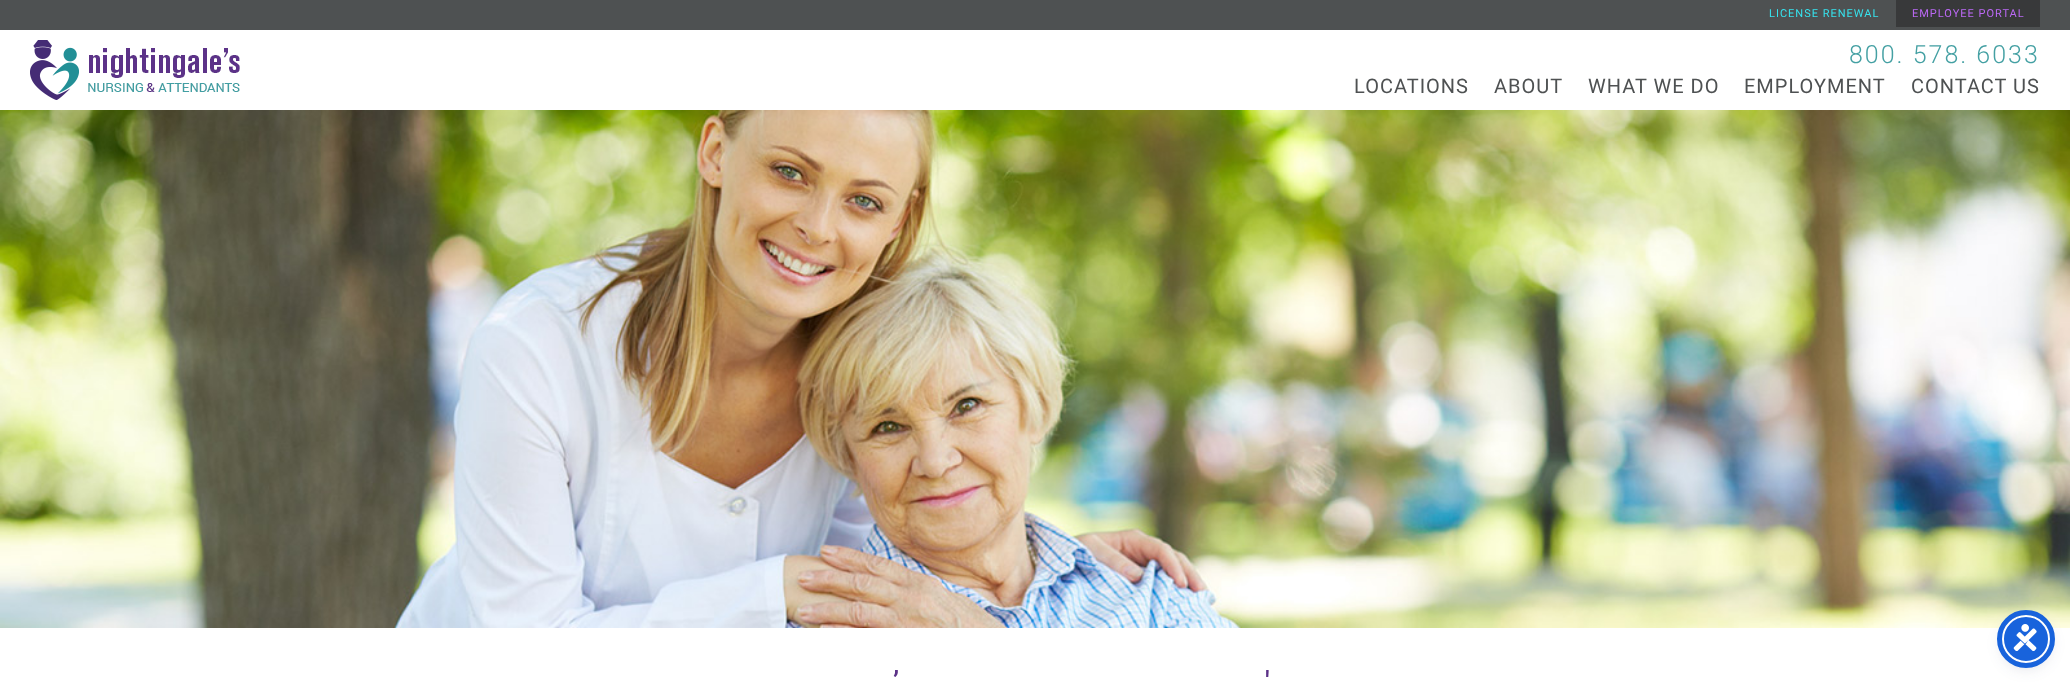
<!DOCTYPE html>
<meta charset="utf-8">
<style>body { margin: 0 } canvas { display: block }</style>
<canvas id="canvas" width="2070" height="683"></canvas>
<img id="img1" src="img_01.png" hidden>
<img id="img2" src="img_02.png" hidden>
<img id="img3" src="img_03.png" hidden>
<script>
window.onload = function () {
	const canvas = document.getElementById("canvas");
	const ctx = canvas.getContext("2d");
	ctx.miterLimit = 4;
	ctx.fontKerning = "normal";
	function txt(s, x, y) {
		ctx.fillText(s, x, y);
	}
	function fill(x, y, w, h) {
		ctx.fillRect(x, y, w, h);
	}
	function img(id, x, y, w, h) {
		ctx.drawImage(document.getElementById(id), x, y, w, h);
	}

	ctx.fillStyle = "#FFFFFF";
	fill(0, 0, 2070, 683);
	ctx.fillStyle = "#4E5152";
	fill(0, 0, 2070, 30);
	ctx.fillStyle = "#38393A";
	fill(1896, 0, 144, 27);
	img("img1", 30, 40, 210, 60);
	img("img2", 0, 110, 2070, 518);
	ctx.fillStyle = "rgba(93, 100, 148, 0.2)";
	ctx.filter = "blur(2px)";
	ctx.beginPath();
	ctx.roundRect(2002, 617, 48, 48, 24);
	ctx.fill();
	ctx.filter = "none";
	ctx.fillStyle = "rgba(37, 44, 97, 0.15)";
	ctx.filter = "blur(7.5px)";
	ctx.beginPath();
	ctx.roundRect(2002, 620, 48, 48, 24);
	ctx.fill();
	ctx.filter = "none";
	ctx.fillStyle = "#1863DC";
	ctx.beginPath();
	ctx.arc(2026, 639, 23, 0, Math.PI * 2);
	ctx.fill();
	ctx.strokeStyle = "#FFFFFF";
	ctx.lineWidth = 2;
	ctx.stroke();
	ctx.beginPath();
	ctx.arc(2026, 639, 26.5, 0, Math.PI * 2);
	ctx.strokeStyle = "#1863DC";
	ctx.lineWidth = 5;
	ctx.stroke();
	img("img3", 2013, 624, 24, 27);
	ctx.letterSpacing = "1px";
	ctx.font = "11px Roboto";
	ctx.fillStyle = "#36E3EE";
	txt("LICENSE RENEWAL", 1769, 17);
	ctx.fillStyle = "#BC69F6";
	txt("EMPLOYEE PORTAL", 1912, 17);
	ctx.letterSpacing = "2px";
	ctx.font = "300 25px Roboto";
	ctx.fillStyle = "#44A0A3";
	txt("800. 578. 6033", 1849, 63);
	ctx.letterSpacing = "1px";
	ctx.font = "20px Roboto";
	ctx.fillStyle = "#4E5152";
	txt("LOCATIONS", 1354, 93);
	txt("ABOUT", 1494, 93);
	txt("WHAT WE DO", 1588, 93);
	txt("EMPLOYMENT", 1744, 93);
	txt("CONTACT US", 1911, 93);
	ctx.letterSpacing = "0px";
	ctx.font = "500 28px Roboto";
	ctx.fillStyle = "#5C3288";
	txt("’", 893, 691);
	txt("'", 1265, 691);
};
</script>
